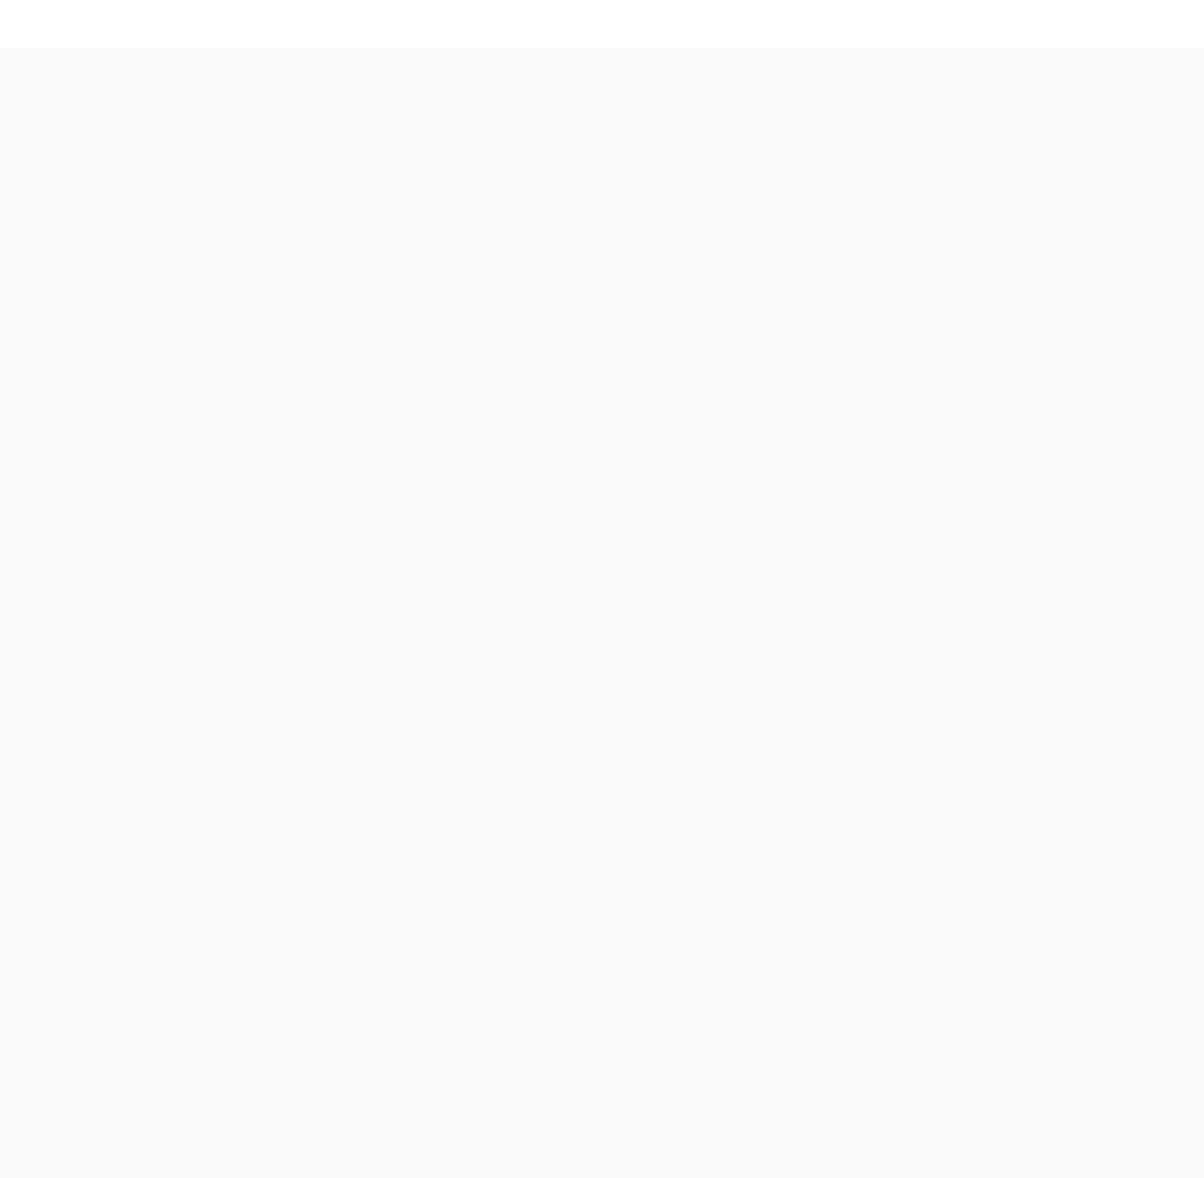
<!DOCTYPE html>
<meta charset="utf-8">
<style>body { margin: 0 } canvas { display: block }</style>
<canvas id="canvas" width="1204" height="1178"></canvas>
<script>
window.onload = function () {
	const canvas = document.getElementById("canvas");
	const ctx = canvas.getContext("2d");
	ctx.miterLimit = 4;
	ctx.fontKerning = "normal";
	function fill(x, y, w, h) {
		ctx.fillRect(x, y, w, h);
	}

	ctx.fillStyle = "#FAFAFA";
	fill(0, 0, 1204, 1178);
	ctx.fillStyle = "#FFFFFF";
	fill(0, 0, 1204, 48);
};
</script>
